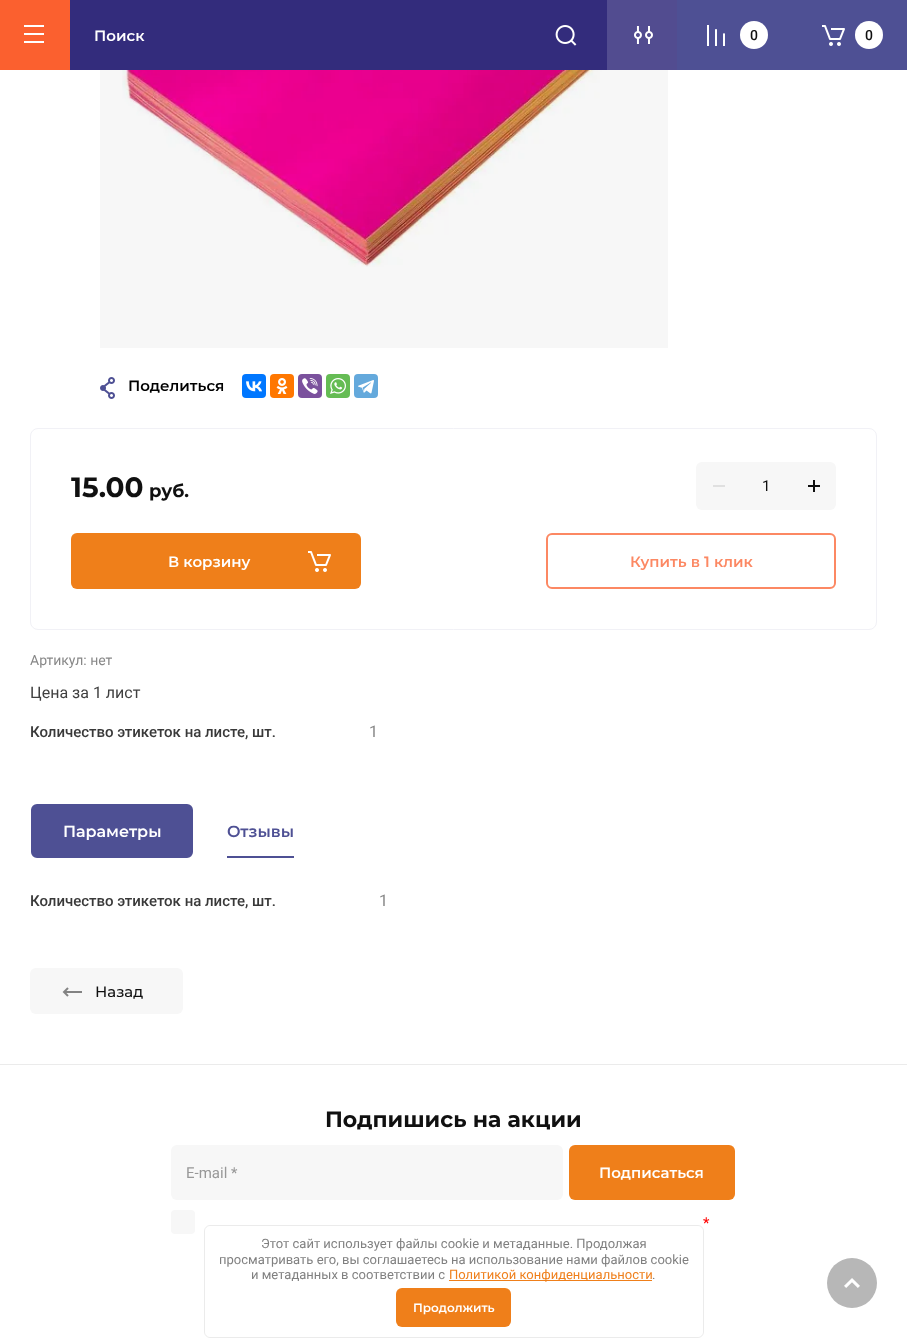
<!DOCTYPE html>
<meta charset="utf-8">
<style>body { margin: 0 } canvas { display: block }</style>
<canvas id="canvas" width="907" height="1338"></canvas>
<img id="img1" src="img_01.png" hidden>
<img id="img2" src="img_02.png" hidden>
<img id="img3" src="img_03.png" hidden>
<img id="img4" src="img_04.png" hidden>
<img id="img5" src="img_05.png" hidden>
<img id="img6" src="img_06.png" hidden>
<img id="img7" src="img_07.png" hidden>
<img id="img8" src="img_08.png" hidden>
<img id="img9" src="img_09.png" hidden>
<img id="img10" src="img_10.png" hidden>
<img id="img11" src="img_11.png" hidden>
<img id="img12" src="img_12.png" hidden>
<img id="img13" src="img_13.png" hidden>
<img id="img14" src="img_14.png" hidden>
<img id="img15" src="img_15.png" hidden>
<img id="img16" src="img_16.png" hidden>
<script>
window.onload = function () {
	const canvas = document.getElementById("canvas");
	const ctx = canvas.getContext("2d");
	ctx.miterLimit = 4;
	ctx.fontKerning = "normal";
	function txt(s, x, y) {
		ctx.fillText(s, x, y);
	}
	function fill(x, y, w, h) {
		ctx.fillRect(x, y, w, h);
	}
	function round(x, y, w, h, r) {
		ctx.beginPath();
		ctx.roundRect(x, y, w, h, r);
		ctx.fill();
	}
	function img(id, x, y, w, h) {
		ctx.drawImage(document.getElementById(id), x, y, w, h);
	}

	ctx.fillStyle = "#FFFFFF";
	fill(0, 0, 907, 1338);
	ctx.fillStyle = "#FB602F";
	fill(0, 0, 70, 70);
	img("img1", 24, 25, 20, 18);
	ctx.fillStyle = "#332C7C";
	fill(70, 0, 537, 70);
	img("img2", 555, 25, 22, 21);
	ctx.fillStyle = "#524C90";
	fill(607, 0, 70, 70);
	img("img3", 634, 26, 19, 18);
	ctx.fillStyle = "#4E5094";
	fill(677, 0, 230, 70);
	img("img4", 707, 25, 18, 21);
	ctx.fillStyle = "#FFFFFF";
	ctx.beginPath();
	ctx.arc(754, 35, 14, 0, Math.PI * 2);
	ctx.fill();
	img("img5", 822, 25, 23, 21);
	ctx.beginPath();
	ctx.arc(869, 35, 14, 0, Math.PI * 2);
	ctx.fill();
	ctx.fillStyle = "#EBEBEB";
	fill(0, 1064, 907, 1);
	img("img6", 122, 70, 531, 197);
	ctx.fillStyle = "rgba(0, 0, 0, 0.03)";
	fill(100, 70, 568, 278);
	img("img7", 100, 377, 15, 22);
	ctx.fillStyle = "#0077FF";
	round(242, 374, 24, 24, 4);
	img("img8", 246, 381, 16, 11);
	ctx.fillStyle = "#FF7700";
	round(270, 374, 24, 24, 4);
	img("img9", 276, 378, 12, 16);
	ctx.fillStyle = "#7B519D";
	round(298, 374, 24, 24, 4);
	img("img10", 302, 378, 16, 16);
	ctx.fillStyle = "#65BC54";
	round(326, 374, 24, 24, 4);
	img("img11", 330, 378, 16, 16);
	ctx.fillStyle = "#64A9DC";
	round(354, 374, 24, 24, 4);
	img("img12", 358, 380, 16, 14);
	ctx.beginPath();
	ctx.roundRect(30.5, 428.5, 846, 201, 7.5);
	ctx.strokeStyle = "#F1F1F6";
	ctx.stroke();
	ctx.fillStyle = "#F7F7F7";
	round(696, 462, 140, 48, 6);
	ctx.fillStyle = "#E0E0E0";
	fill(713, 485, 12, 2);
	img("img13", 808, 480, 12, 12);
	ctx.fillStyle = "#EF7F1A";
	round(71, 533, 290, 56, 6);
	img("img14", 308, 551, 23, 21);
	ctx.beginPath();
	ctx.roundRect(547, 534, 288, 54, 5);
	ctx.strokeStyle = "#FC8863";
	ctx.lineWidth = 2;
	ctx.stroke();
	ctx.beginPath();
	ctx.roundRect(32, 805, 160, 52, 5);
	ctx.strokeStyle = "#4E5094";
	ctx.stroke();
	ctx.fillStyle = "#4E5094";
	fill(33, 806, 158, 50);
	fill(227, 856, 67, 2);
	ctx.fillStyle = "#F7F7F7";
	round(30, 968, 153, 46, 6);
	img("img15", 62, 987, 20, 10);
	round(171, 1145, 392, 55, 6);
	ctx.fillStyle = "#EF7F1A";
	round(569, 1145, 166, 55, 6);
	ctx.fillStyle = "#F7F7F7";
	round(171, 1210, 24, 24, 4);
	ctx.fillStyle = "#B7B7B7";
	ctx.beginPath();
	ctx.arc(852, 1283, 25, 0, Math.PI * 2);
	ctx.fill();
	img("img16", 844, 1278, 16, 10);
	ctx.beginPath();
	ctx.roundRect(204.5, 1225.5, 499, 112, 5.5);
	ctx.strokeStyle = "rgba(0, 0, 0, 0.08)";
	ctx.lineWidth = 1;
	ctx.stroke();
	ctx.fillStyle = "#EF7F1A";
	fill(449, 1280, 203, 1);
	round(396, 1288, 115, 39, 6);
	ctx.font = "600 15px Montserrat";
	ctx.fillStyle = "#FFFFFF";
	txt("Поиск", 94, 41);
	ctx.font = "500 14px Roboto";
	ctx.fillStyle = "#101010";
	txt("0", 750, 40);
	txt("0", 865, 40);
	ctx.font = "600 15px Montserrat";
	ctx.fillStyle = "#000000";
	txt("Поделиться", 128, 391);
	ctx.font = "bold 28px Montserrat";
	ctx.fillStyle = "#101010";
	txt("15.00", 71, 497);
	ctx.font = "bold 18px Montserrat";
	txt("руб.", 149, 497);
	ctx.font = "15px Roboto";
	txt("1", 762, 491);
	ctx.font = "600 15px Montserrat";
	ctx.fillStyle = "#FFFFFF";
	txt("В корзину", 168, 567);
	ctx.fillStyle = "#FC8863";
	txt("Купить в 1 клик", 630, 567);
	ctx.font = "14px Roboto";
	ctx.fillStyle = "#888888";
	txt("Артикул: нет", 30, 665);
	ctx.font = "16px Roboto";
	ctx.fillStyle = "#404040";
	txt("Цена за 1 лист", 30, 698);
	ctx.font = "500 15px Roboto";
	ctx.fillStyle = "#393939";
	txt("Количество этикеток на листе, шт.", 30, 737);
	ctx.font = "16px Roboto";
	ctx.fillStyle = "#888888";
	txt("1", 369, 737);
	ctx.font = "600 16px Montserrat";
	ctx.fillStyle = "#FFFFFF";
	txt("Параметры", 63, 837);
	ctx.fillStyle = "#4E5094";
	txt("Отзывы", 227, 837);
	ctx.font = "500 15px Roboto";
	ctx.fillStyle = "#393939";
	txt("Количество этикеток на листе, шт.", 30, 906);
	ctx.font = "16px Roboto";
	ctx.fillStyle = "#888888";
	txt("1", 379, 906);
	ctx.font = "500 15px Montserrat";
	ctx.fillStyle = "#101010";
	txt("Назад", 95, 997);
	ctx.font = "bold 22px Montserrat";
	txt("Подпишись на акции", 325, 1127);
	ctx.font = "15px Roboto";
	ctx.fillStyle = "#989898";
	txt("E-mail *", 186, 1178);
	ctx.font = "600 15px Montserrat";
	ctx.fillStyle = "#FFFFFF";
	txt("Подписаться", 599, 1178);
	ctx.font = "15px Roboto";
	ctx.fillStyle = "#FF0000";
	txt("*", 703, 1228);
	ctx.font = "13px Roboto";
	ctx.fillStyle = "#808080";
	txt("Этот сайт использует файлы cookie и метаданные. Продолжая", 261, 1248);
	txt("просматривать его, вы соглашаетесь на использование нами файлов cookie", 219, 1264);
	txt("и метаданных в соответствии с", 251, 1279);
	ctx.fillStyle = "#EF7F1A";
	txt("Политикой конфиденциальности", 449, 1279);
	ctx.fillStyle = "#808080";
	txt(".", 652, 1279);
	ctx.font = "600 12px Montserrat";
	ctx.fillStyle = "#FFFFFF";
	txt("Продолжить", 413, 1312);
};
</script>
